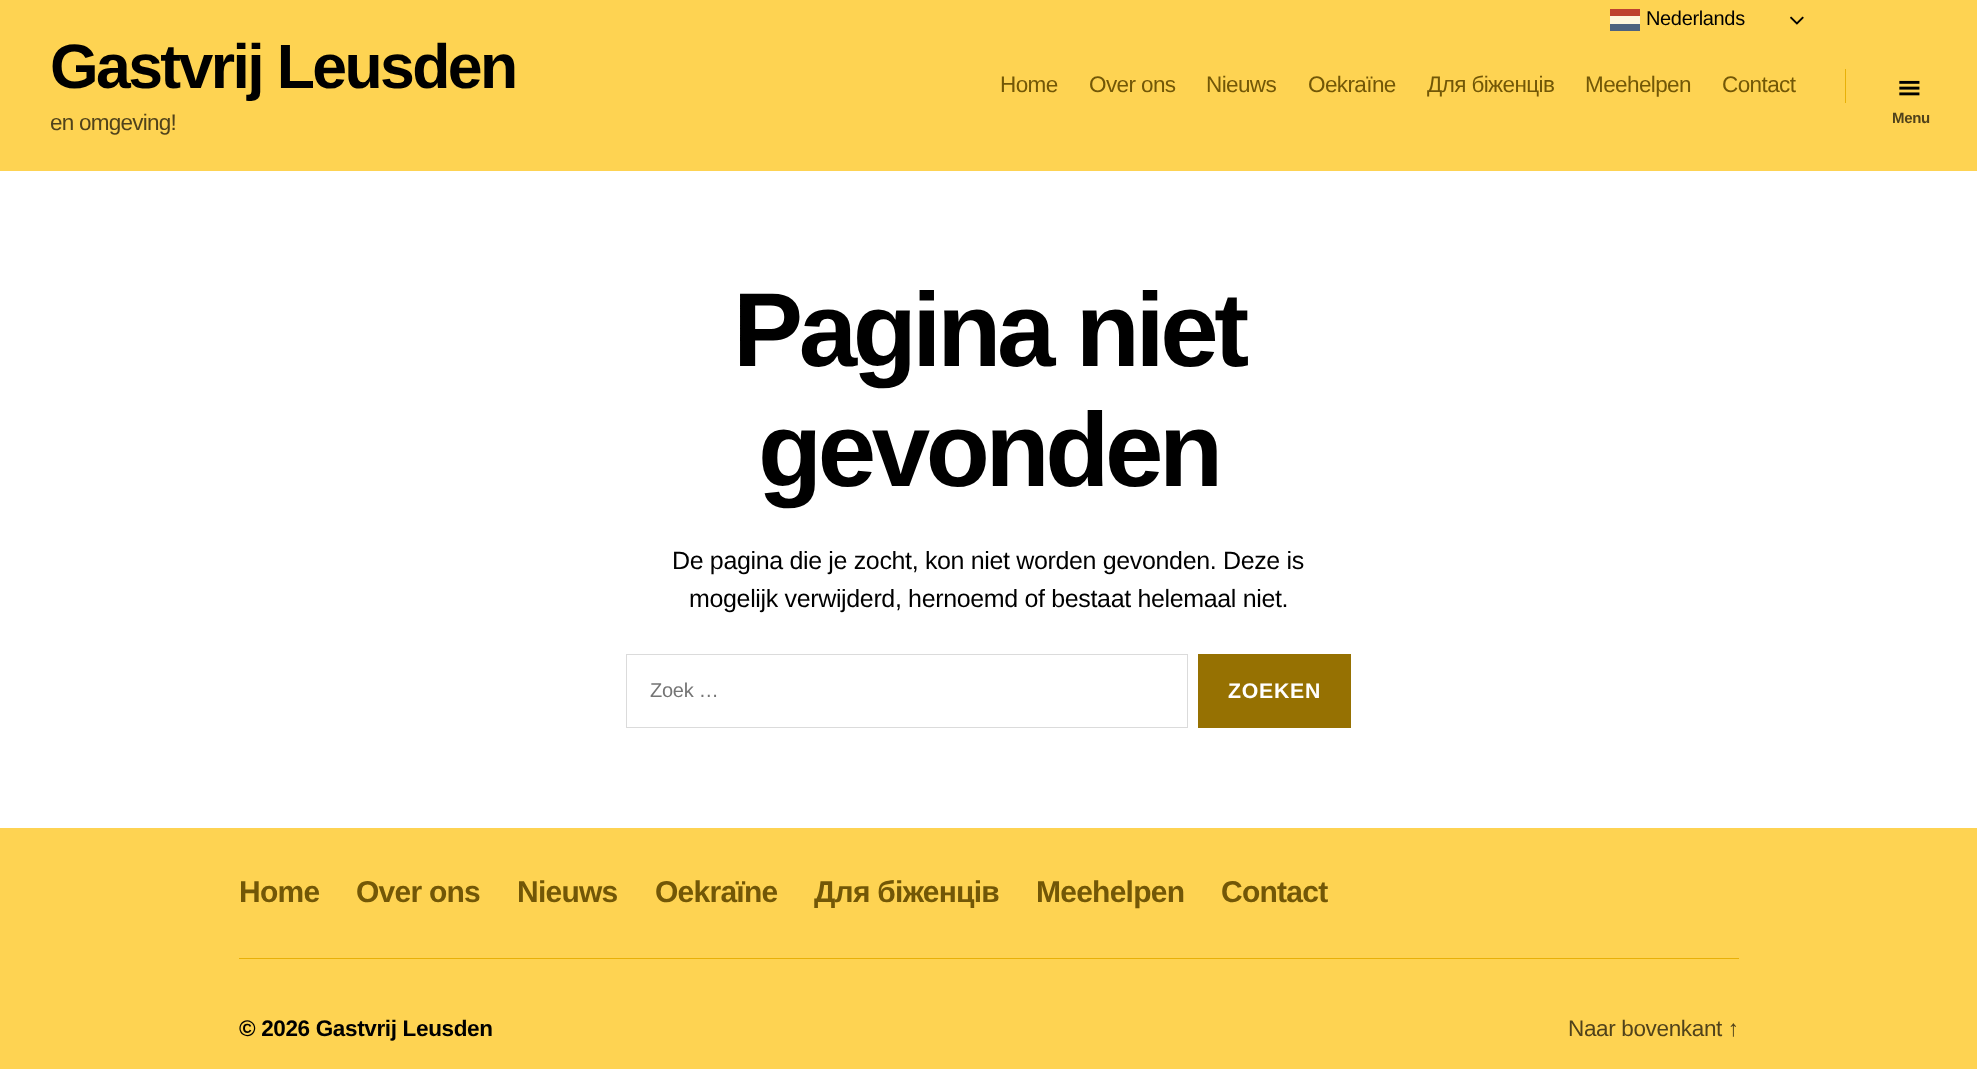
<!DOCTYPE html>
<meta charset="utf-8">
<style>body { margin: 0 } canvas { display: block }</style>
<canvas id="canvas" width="1977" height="1069"></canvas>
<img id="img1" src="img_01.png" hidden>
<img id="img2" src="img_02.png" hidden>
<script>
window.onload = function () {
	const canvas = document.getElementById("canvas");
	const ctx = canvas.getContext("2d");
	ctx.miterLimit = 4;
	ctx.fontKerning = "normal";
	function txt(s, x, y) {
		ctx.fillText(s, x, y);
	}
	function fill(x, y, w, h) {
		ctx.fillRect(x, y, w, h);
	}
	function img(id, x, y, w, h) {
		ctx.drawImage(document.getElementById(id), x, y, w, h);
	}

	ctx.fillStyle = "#FFFFFF";
	fill(0, 0, 1977, 1069);
	ctx.fillStyle = "#FED352";
	fill(0, 0, 1977, 171);
	ctx.fillStyle = "#BE4130";
	fill(1610, 9, 30, 7);
	ctx.fillStyle = "#FFF6DC";
	fill(1610, 16, 30, 8);
	img("img1", 1790, 16, 14, 9);
	ctx.fillStyle = "#4D6280";
	fill(1610, 24, 30, 7);
	ctx.fillStyle = "#E8B007";
	fill(1845, 69, 1, 34);
	img("img2", 1899, 80, 21, 16);
	ctx.strokeStyle = "#DBDBDB";
	ctx.strokeRect(626.5, 654.5, 561, 73);
	ctx.fillStyle = "#967102";
	fill(1198, 654, 153, 74);
	ctx.fillStyle = "#FED352";
	fill(0, 828, 1977, 241);
	ctx.fillStyle = "#E8B007";
	fill(239, 958, 1500, 1);
	ctx.letterSpacing = "-0.35px";
	ctx.font = "20px Liberation Sans";
	ctx.fillStyle = "#000000";
	txt("Nederlands", 1646, 25);
	ctx.letterSpacing = "-2.6px";
	ctx.font = "bold 62.5px Liberation Sans";
	txt("Gastvrij Leusden", 50, 88);
	ctx.letterSpacing = "-0.75px";
	ctx.font = "22.5px Liberation Sans";
	ctx.fillStyle = "#50421B";
	txt("en omgeving!", 50, 130);
	ctx.letterSpacing = "-0.6px";
	ctx.fillStyle = "#725707";
	txt("Home", 1000, 92);
	txt("Over ons", 1089, 92);
	txt("Nieuws", 1206, 92);
	txt("Oekraïne", 1308, 92);
	txt("Для біженців", 1427, 92);
	txt("Meehelpen", 1585, 92);
	txt("Contact", 1722, 92);
	ctx.letterSpacing = "-0.35px";
	ctx.font = "bold 15px Liberation Sans";
	ctx.fillStyle = "#50421B";
	txt("Menu", 1892, 123);
	ctx.letterSpacing = "-4.4px";
	ctx.font = "bold 105px Liberation Sans";
	ctx.fillStyle = "#000000";
	txt("Pagina niet", 733, 366);
	txt("gevonden", 758, 486);
	ctx.letterSpacing = "-0.35px";
	ctx.font = "25px Liberation Sans";
	txt("De pagina die je zocht, kon niet worden gevonden. Deze is", 672, 569);
	txt("mogelijk verwijderd, hernoemd of bestaat helemaal niet.", 689, 607);
	ctx.letterSpacing = "-0.25px";
	ctx.font = "20px Liberation Sans";
	ctx.fillStyle = "#757575";
	txt("Zoek …", 650, 697);
	ctx.letterSpacing = "0.75px";
	ctx.font = "bold 21.25px Liberation Sans";
	ctx.fillStyle = "#FFFFFF";
	txt("ZOEKEN", 1228, 698);
	ctx.letterSpacing = "-0.75px";
	ctx.font = "bold 30px Liberation Sans";
	ctx.fillStyle = "#725707";
	txt("Home", 239, 902);
	txt("Over ons", 356, 902);
	txt("Nieuws", 517, 902);
	txt("Oekraïne", 655, 902);
	txt("Для біженців", 814, 902);
	txt("Meehelpen", 1036, 902);
	txt("Contact", 1221, 902);
	ctx.letterSpacing = "-0.35px";
	ctx.font = "bold 22.5px Liberation Sans";
	ctx.fillStyle = "#000000";
	txt("© 2026 Gastvrij Leusden", 239, 1036);
	ctx.font = "22.5px Liberation Sans";
	ctx.fillStyle = "#50421B";
	txt("Naar bovenkant ↑", 1568, 1036);
};
</script>
